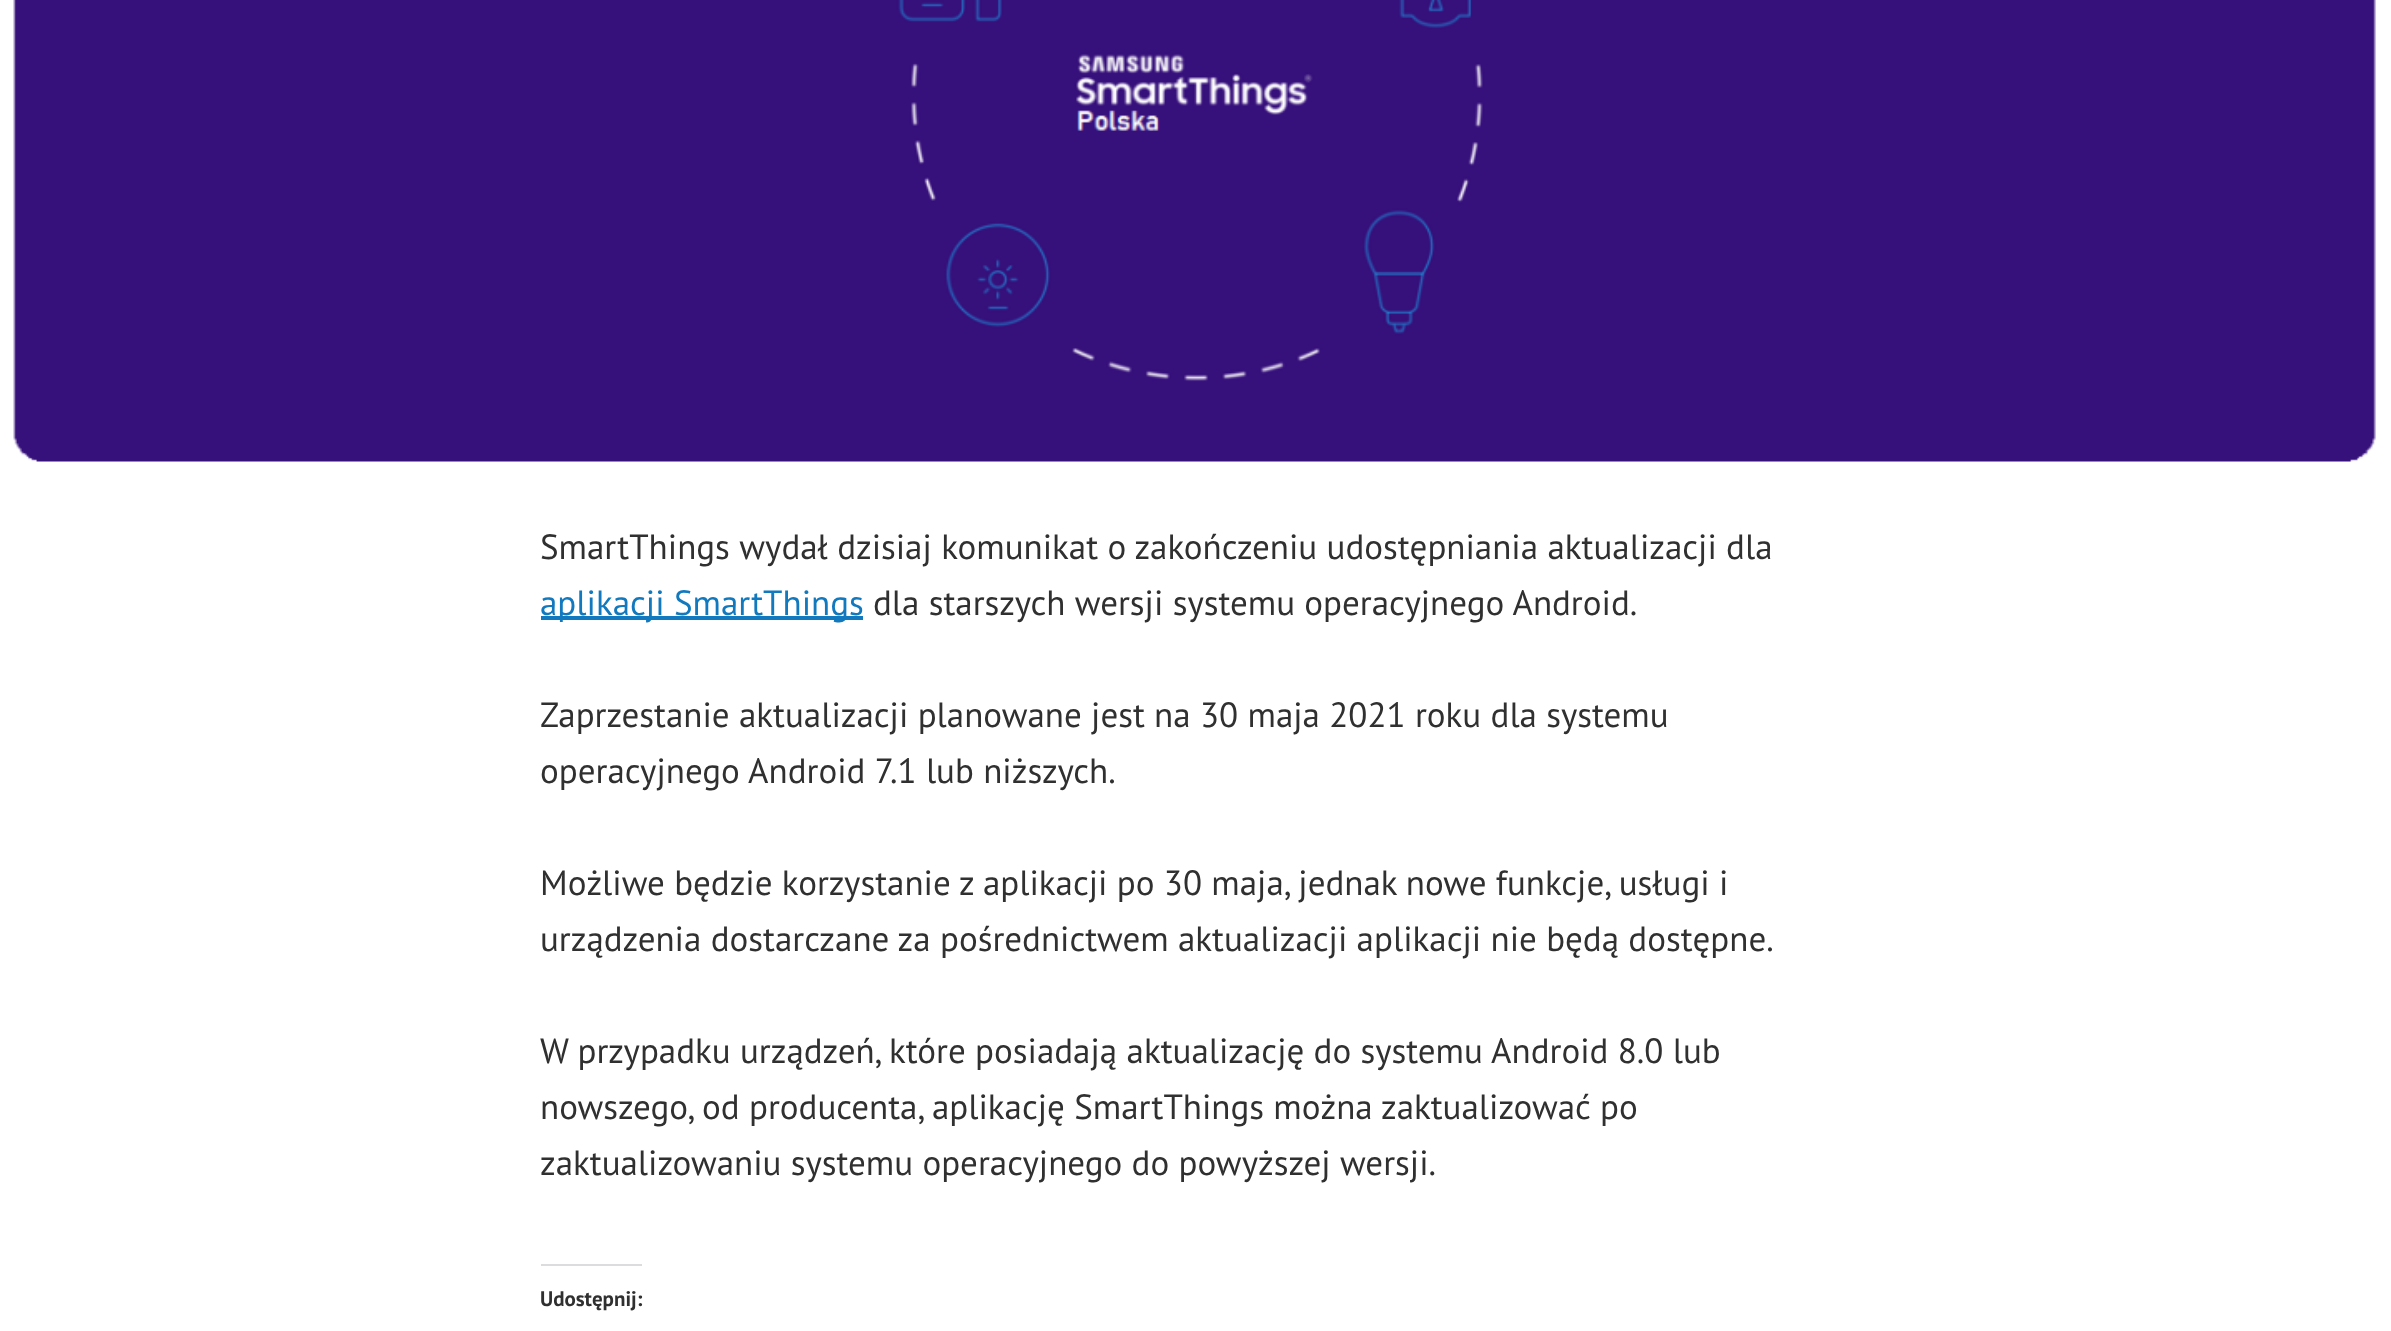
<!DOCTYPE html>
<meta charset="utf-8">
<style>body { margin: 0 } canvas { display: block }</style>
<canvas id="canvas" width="2391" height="1331"></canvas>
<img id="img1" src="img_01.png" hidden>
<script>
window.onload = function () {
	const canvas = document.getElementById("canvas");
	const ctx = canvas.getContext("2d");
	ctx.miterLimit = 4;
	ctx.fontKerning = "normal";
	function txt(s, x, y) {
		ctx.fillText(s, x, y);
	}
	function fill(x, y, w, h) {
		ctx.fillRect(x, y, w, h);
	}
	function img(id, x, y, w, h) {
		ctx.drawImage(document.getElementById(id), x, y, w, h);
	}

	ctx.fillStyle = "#FFFFFF";
	fill(0, 0, 2391, 1331);
	img("img1", 13, 0, 2363, 462);
	ctx.fillStyle = "#1279BE";
	fill(541, 616, 322, 4);
	ctx.fillStyle = "#DCDCDE";
	fill(541, 1264, 101, 2);
	ctx.font = "35px PT Sans";
	ctx.fillStyle = "#303030";
	txt("SmartThings wydał dzisiaj komunikat o zakończeniu udostępniania aktualizacji dla", 540, 559);
	ctx.fillStyle = "#1279BE";
	txt("aplikacji SmartThings", 540, 615);
	ctx.fillStyle = "#303030";
	txt("dla starszych wersji systemu operacyjnego Android.", 873, 615);
	txt("Zaprzestanie aktualizacji planowane jest na 30 maja 2021 roku dla systemu", 540, 727);
	txt("operacyjnego Android 7.1 lub niższych.", 540, 783);
	txt("Możliwe będzie korzystanie z aplikacji po 30 maja, jednak nowe funkcje, usługi i", 540, 895);
	txt("urządzenia dostarczane za pośrednictwem aktualizacji aplikacji nie będą dostępne.", 540, 951);
	txt("W przypadku urządzeń, które posiadają aktualizację do systemu Android 8.0 lub", 540, 1063);
	txt("nowszego, od producenta, aplikację SmartThings można zaktualizować po", 540, 1119);
	txt("zaktualizowaniu systemu operacyjnego do powyższej wersji.", 540, 1175);
	ctx.font = "bold 21px PT Sans";
	txt("Udostępnij:", 540, 1306);
};
</script>
